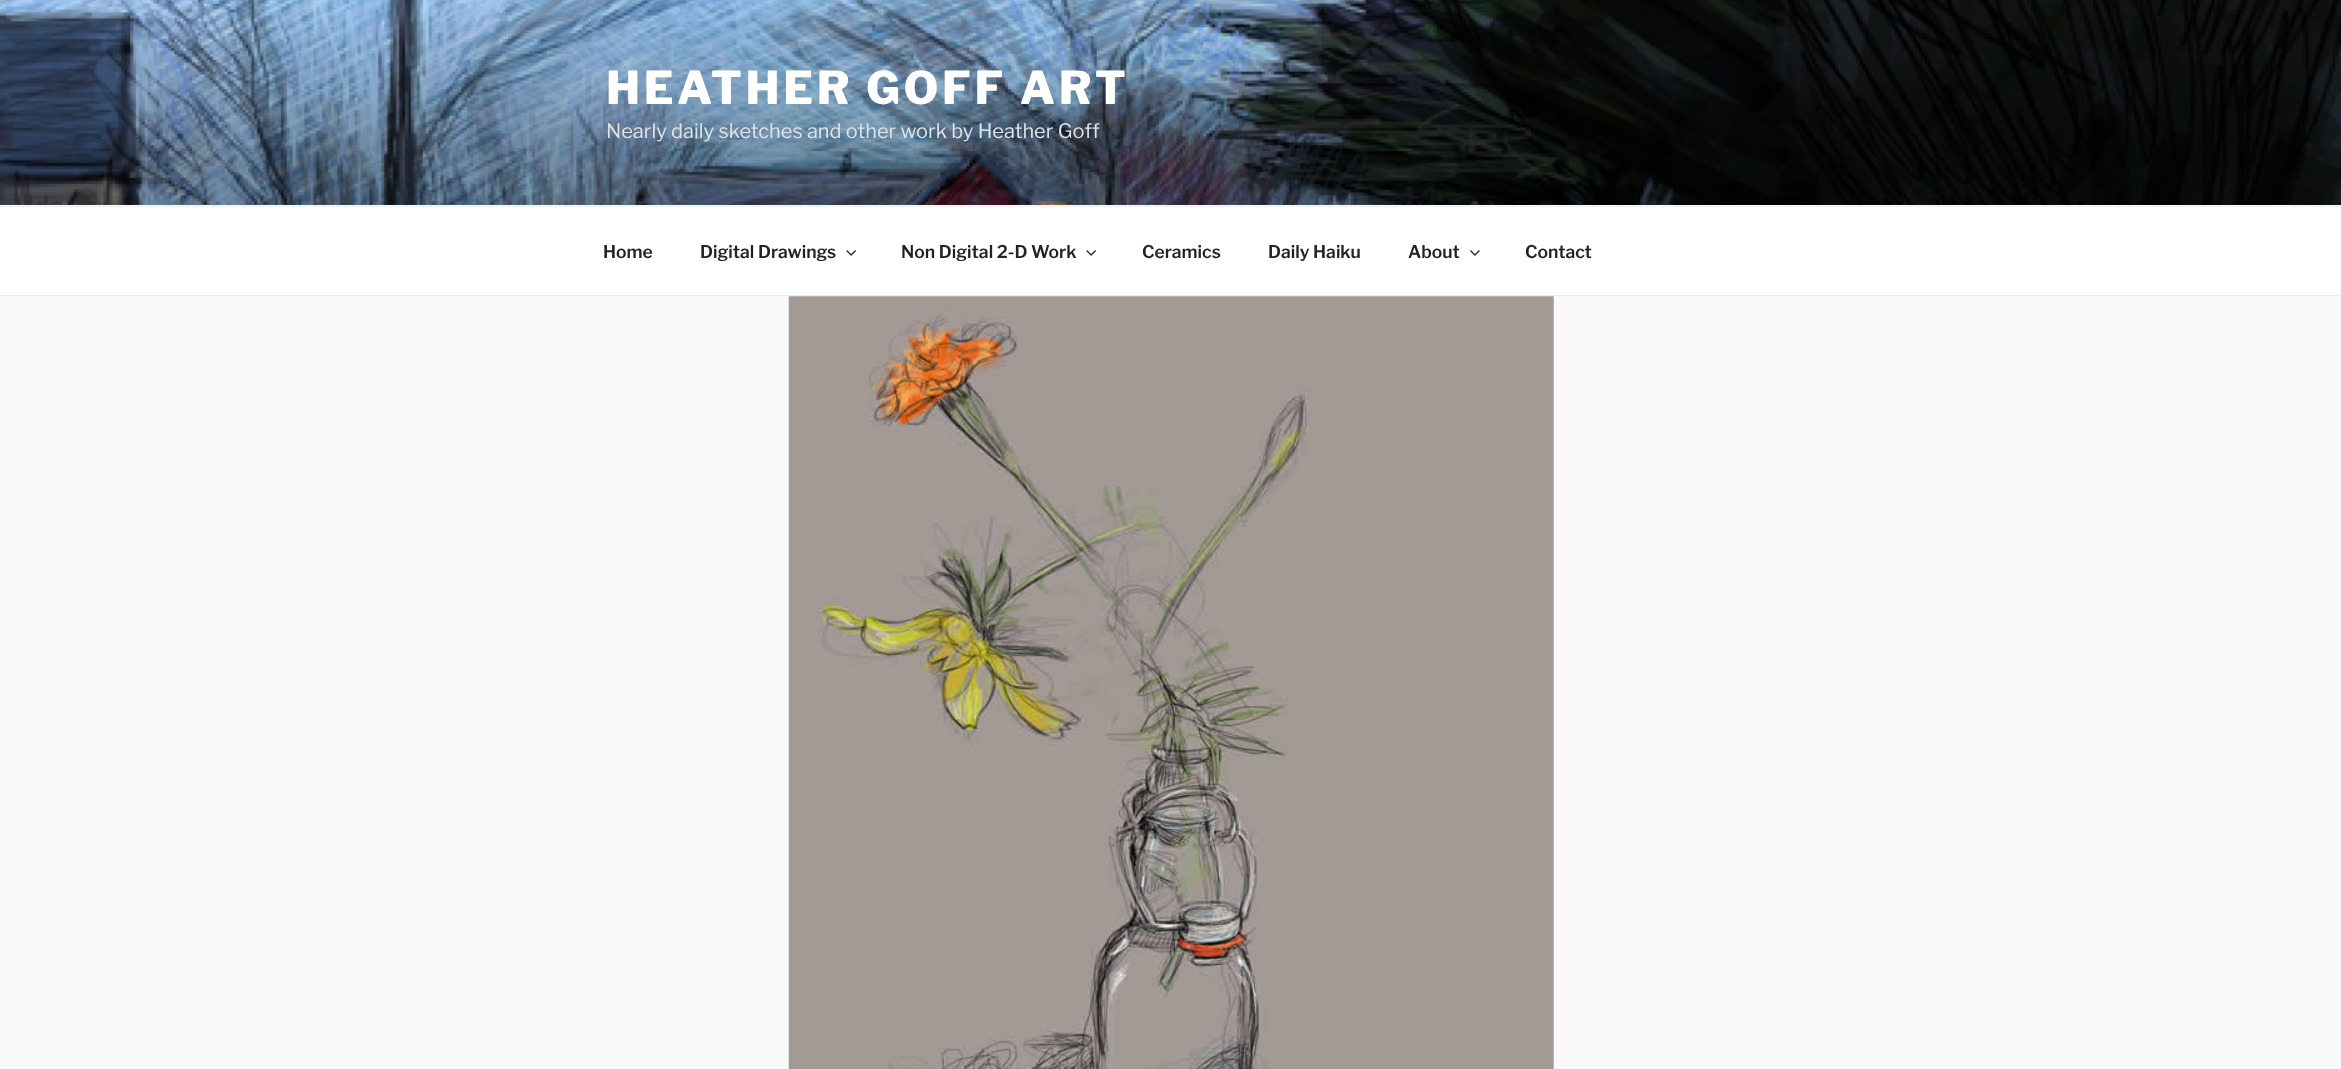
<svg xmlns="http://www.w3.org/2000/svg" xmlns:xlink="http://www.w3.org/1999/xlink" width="2341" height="1069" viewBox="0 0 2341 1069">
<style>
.cls-1{font:800 45px Libre Franklin;letter-spacing:3.6px;fill:#ffffff}
.cls-2{font:20px Libre Franklin;fill:#dee3e8}
.cls-3{font:600 17.5px Libre Franklin;fill:#222222}
</style>
<rect width="100%" height="100%" fill="#fafafa"/>
<image xlink:href="image0.png" x="0" y="0" width="2341" height="205"/>
<rect fill="#ffffff" x="0" y="207" width="2341" height="88"/>
<rect fill="#eeeeee" x="0" y="206" width="2341" height="1"/>
<rect fill="#eeeeee" x="0" y="295" width="2341" height="1"/>
<image xlink:href="image1.png" x="846" y="250" width="10" height="6"/>
<image xlink:href="image1.png" x="1086" y="250" width="10" height="6"/>
<image xlink:href="image2.png" x="1470" y="250" width="10" height="6"/>
<image xlink:href="image3.png" x="788" y="296" width="766" height="773"/>
<text class="cls-1" x="606" y="104">HEATHER GOFF ART</text>
<text class="cls-2" x="606" y="138">Nearly daily sketches and other work by Heather Goff</text>
<text class="cls-3" x="603" y="258">Home</text>
<text class="cls-3" x="700" y="258">Digital Drawings</text>
<text class="cls-3" x="901" y="258">Non Digital 2-D Work</text>
<text class="cls-3" x="1142" y="258">Ceramics</text>
<text class="cls-3" x="1268" y="258">Daily Haiku</text>
<text class="cls-3" x="1408" y="258">About</text>
<text class="cls-3" x="1525" y="258">Contact</text>
</svg>
